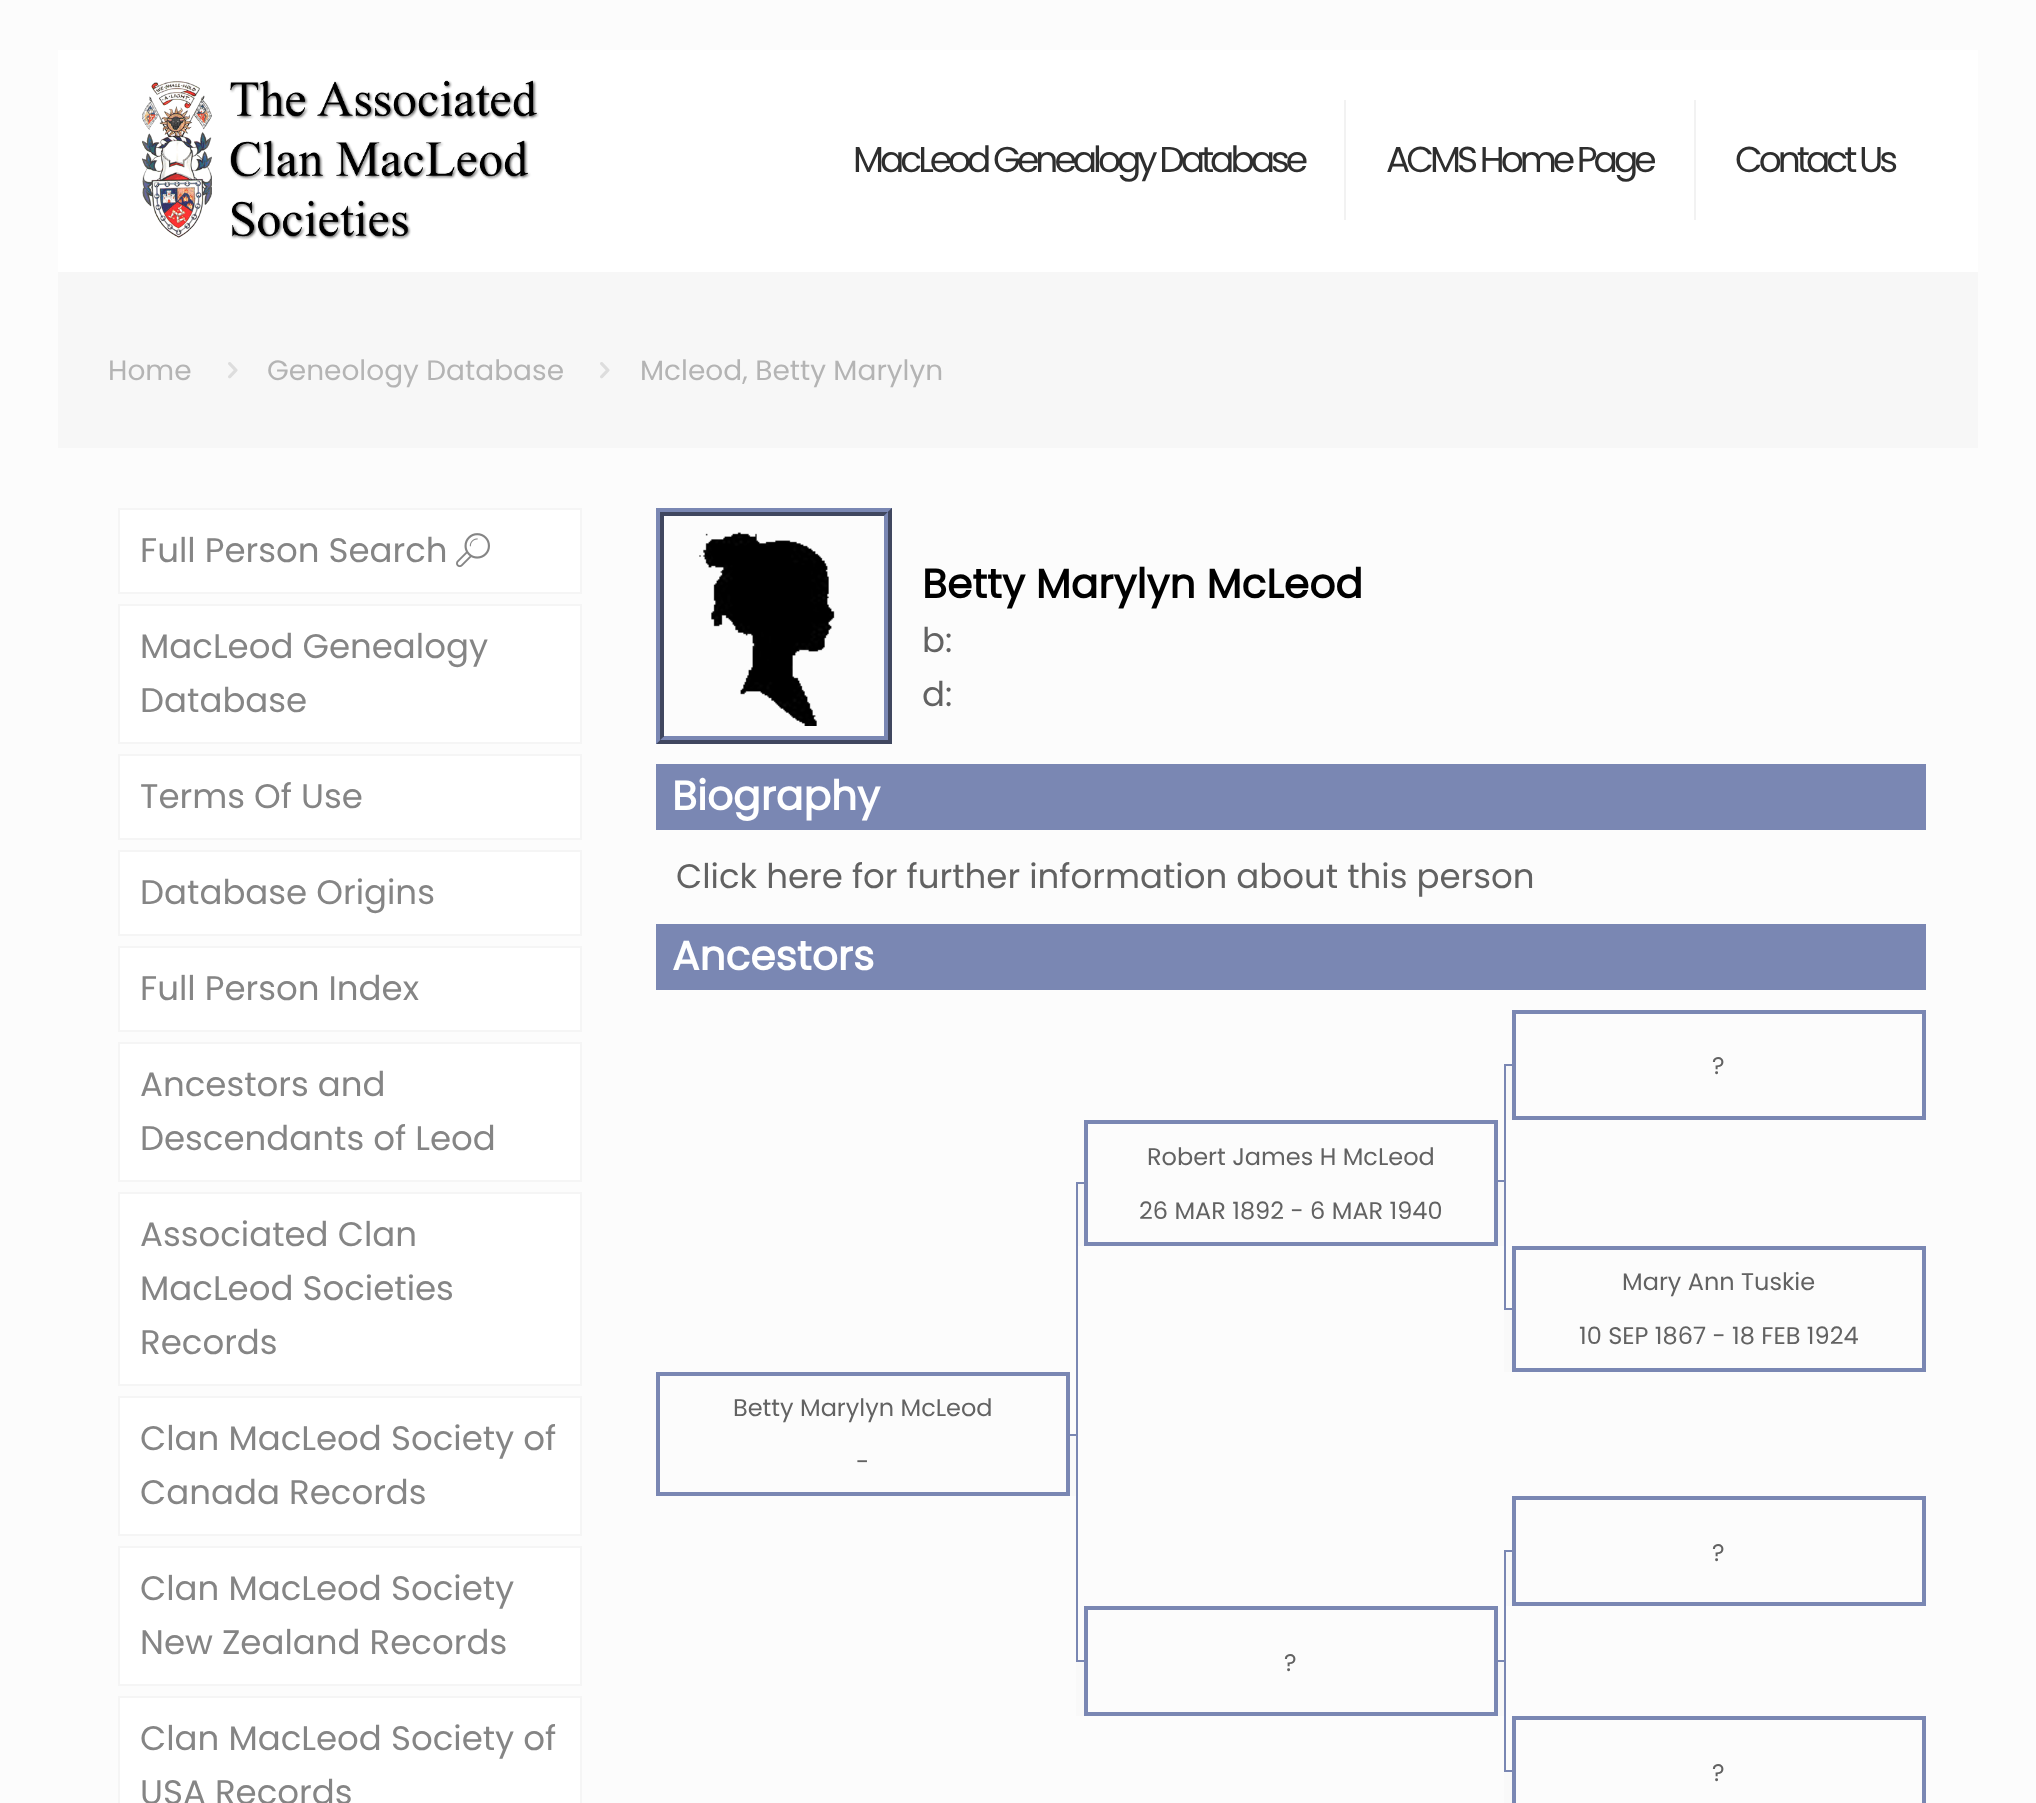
<svg xmlns="http://www.w3.org/2000/svg" xmlns:xlink="http://www.w3.org/1999/xlink" width="2036" height="1803" viewBox="0 0 2036 1803">
<style>
.cls-1{font:36px Poppins;letter-spacing:-4px;fill:#2e2e2e}
.cls-2{font:28px Poppins;fill:#b4b4b4}
.cls-3{font:34px Poppins;fill:#858585}
.cls-4{font:bold 40.75px Poppins;fill:#000000}
.cls-5{font:34px Poppins;fill:#626262}
.cls-6{font:bold 40.75px Poppins;fill:#ffffff}
.cls-7{font:24px Poppins;fill:#626262}
</style>
<rect width="100%" height="100%" fill="#fcfcfc"/>
<rect fill="#ffffff" x="58" y="50" width="1920" height="222"/>
<image xlink:href="image0.png" x="142" y="80" width="397" height="160"/>
<rect fill="#f2f2f2" x="1344" y="100" width="2" height="120"/>
<rect fill="#f2f2f2" x="1694" y="100" width="2" height="120"/>
<rect fill="#f7f7f7" x="58" y="272" width="1920" height="176"/>
<image xlink:href="image1.png" x="228" y="362" width="10" height="17"/>
<image xlink:href="image1.png" x="600" y="362" width="10" height="17"/>
<rect fill="#ffffff" stroke="#f5f5f5" stroke-width="2" x="119" y="509" width="462" height="84"/>
<image xlink:href="image2.png" x="456" y="533" width="34" height="35"/>
<rect fill="#ffffff" stroke="#f5f5f5" stroke-width="2" x="119" y="605" width="462" height="138"/>
<rect fill="#ffffff" stroke="#f5f5f5" stroke-width="2" x="119" y="755" width="462" height="84"/>
<rect fill="#ffffff" stroke="#f5f5f5" stroke-width="2" x="119" y="851" width="462" height="84"/>
<rect fill="#ffffff" stroke="#f5f5f5" stroke-width="2" x="119" y="947" width="462" height="84"/>
<rect fill="#ffffff" stroke="#f5f5f5" stroke-width="2" x="119" y="1043" width="462" height="138"/>
<rect fill="#ffffff" stroke="#f5f5f5" stroke-width="2" x="119" y="1193" width="462" height="192"/>
<rect fill="#ffffff" stroke="#f5f5f5" stroke-width="2" x="119" y="1397" width="462" height="138"/>
<rect fill="#ffffff" stroke="#f5f5f5" stroke-width="2" x="119" y="1547" width="462" height="138"/>
<rect fill="#ffffff" stroke="#f5f5f5" stroke-width="2" x="119" y="1697" width="462" height="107"/>
<image xlink:href="image3.png" x="656" y="508" width="236" height="236"/>
<rect fill="#7a87b3" x="656" y="764" width="1270" height="66"/>
<rect fill="#7a87b3" x="656" y="924" width="1270" height="66"/>
<rect fill="none" stroke="#7a87b3" stroke-width="4" x="1086" y="1122" width="410" height="122"/>
<rect fill="#7a87b3" x="1498" y="1180" width="6" height="2"/>
<rect fill="#f9f9f9" x="1506" y="1064" width="6" height="56"/>
<rect fill="#7a87b3" x="1504" y="1064" width="8" height="2"/>
<rect fill="#7a87b3" x="1504" y="1064" width="2" height="182"/>
<rect fill="none" stroke="#7a87b3" stroke-width="4" x="1514" y="1012" width="410" height="106"/>
<rect fill="#f9f9f9" x="1078" y="1182" width="6" height="64"/>
<rect fill="#7a87b3" x="1076" y="1182" width="8" height="2"/>
<rect fill="#7a87b3" x="1076" y="1182" width="2" height="424"/>
<rect fill="#f9f9f9" x="1498" y="1182" width="6" height="64"/>
<rect fill="#f9f9f9" x="1504" y="1310" width="8" height="62"/>
<rect fill="#7a87b3" x="1504" y="1308" width="8" height="2"/>
<rect fill="#7a87b3" x="1504" y="1246" width="2" height="64"/>
<rect fill="none" stroke="#7a87b3" stroke-width="4" x="1514" y="1248" width="410" height="122"/>
<rect fill="none" stroke="#7a87b3" stroke-width="4" x="658" y="1374" width="410" height="120"/>
<rect fill="#7a87b3" x="1070" y="1434" width="6" height="2"/>
<rect fill="#f9f9f9" x="1070" y="1436" width="6" height="60"/>
<rect fill="#7a87b3" x="1076" y="1660" width="8" height="2"/>
<rect fill="#7a87b3" x="1076" y="1606" width="2" height="56"/>
<rect fill="none" stroke="#7a87b3" stroke-width="4" x="1086" y="1608" width="410" height="106"/>
<rect fill="#7a87b3" x="1498" y="1660" width="6" height="2"/>
<rect fill="#f9f9f9" x="1506" y="1550" width="6" height="56"/>
<rect fill="#7a87b3" x="1504" y="1550" width="8" height="2"/>
<rect fill="#7a87b3" x="1504" y="1550" width="2" height="166"/>
<rect fill="none" stroke="#7a87b3" stroke-width="4" x="1514" y="1498" width="410" height="106"/>
<rect fill="#f9f9f9" x="1076" y="1662" width="8" height="54"/>
<rect fill="#f9f9f9" x="1498" y="1662" width="6" height="54"/>
<rect fill="#f9f9f9" x="1504" y="1772" width="8" height="31"/>
<rect fill="#7a87b3" x="1504" y="1770" width="8" height="2"/>
<rect fill="#7a87b3" x="1504" y="1716" width="2" height="56"/>
<rect fill="none" stroke="#7a87b3" stroke-width="4" x="1514" y="1718" width="410" height="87"/>
<text class="cls-1" x="853" y="172">MacLeod Genealogy Database</text>
<text class="cls-1" x="1386" y="172">ACMS Home Page</text>
<text class="cls-1" x="1735" y="172">Contact Us</text>
<text class="cls-2" x="108" y="380">Home</text>
<text class="cls-2" x="267" y="380">Geneology Database</text>
<text class="cls-2" x="640" y="380">Mcleod, Betty Marylyn</text>
<text class="cls-3" x="140" y="562">Full Person Search</text>
<text class="cls-3"><tspan x="140" y="658">MacLeod Genealogy</tspan><tspan x="140" y="712">Database</tspan></text>
<text class="cls-3" x="140" y="808">Terms Of Use</text>
<text class="cls-3" x="140" y="904">Database Origins</text>
<text class="cls-3" x="140" y="1000">Full Person Index</text>
<text class="cls-3"><tspan x="140" y="1096">Ancestors and</tspan><tspan x="140" y="1150">Descendants of Leod</tspan></text>
<text class="cls-3"><tspan x="140" y="1246">Associated Clan</tspan><tspan x="140" y="1300">MacLeod Societies</tspan><tspan x="140" y="1354">Records</tspan></text>
<text class="cls-3"><tspan x="140" y="1450">Clan MacLeod Society of</tspan><tspan x="140" y="1504">Canada Records</tspan></text>
<text class="cls-3"><tspan x="140" y="1600">Clan MacLeod Society</tspan><tspan x="140" y="1654">New Zealand Records</tspan></text>
<text class="cls-3"><tspan x="140" y="1750">Clan MacLeod Society of</tspan><tspan x="140" y="1804">USA Records</tspan></text>
<text class="cls-4" x="922" y="598">Betty Marylyn McLeod</text>
<text class="cls-5"><tspan x="922" y="652">b:</tspan><tspan x="922" y="706">d:</tspan></text>
<text class="cls-6" x="672" y="810">Biography</text>
<text class="cls-5" x="676" y="888">Click here for further information about this person</text>
<text class="cls-6" x="672" y="970">Ancestors</text>
<text class="cls-7" x="1147" y="1165">Robert James H McLeod</text>
<text class="cls-7" x="1139" y="1219">26 MAR 1892 - 6 MAR 1940</text>
<text class="cls-7" x="1712" y="1074">?</text>
<text class="cls-7" x="1622" y="1290">Mary Ann Tuskie</text>
<text class="cls-7" x="1579" y="1344">10 SEP 1867 - 18 FEB 1924</text>
<text class="cls-7" x="733" y="1416">Betty Marylyn McLeod</text>
<text class="cls-7" x="856" y="1470">-</text>
<text class="cls-7" x="1284" y="1671">?</text>
<text class="cls-7" x="1712" y="1561">?</text>
<text class="cls-7" x="1712" y="1781">?</text>
</svg>
